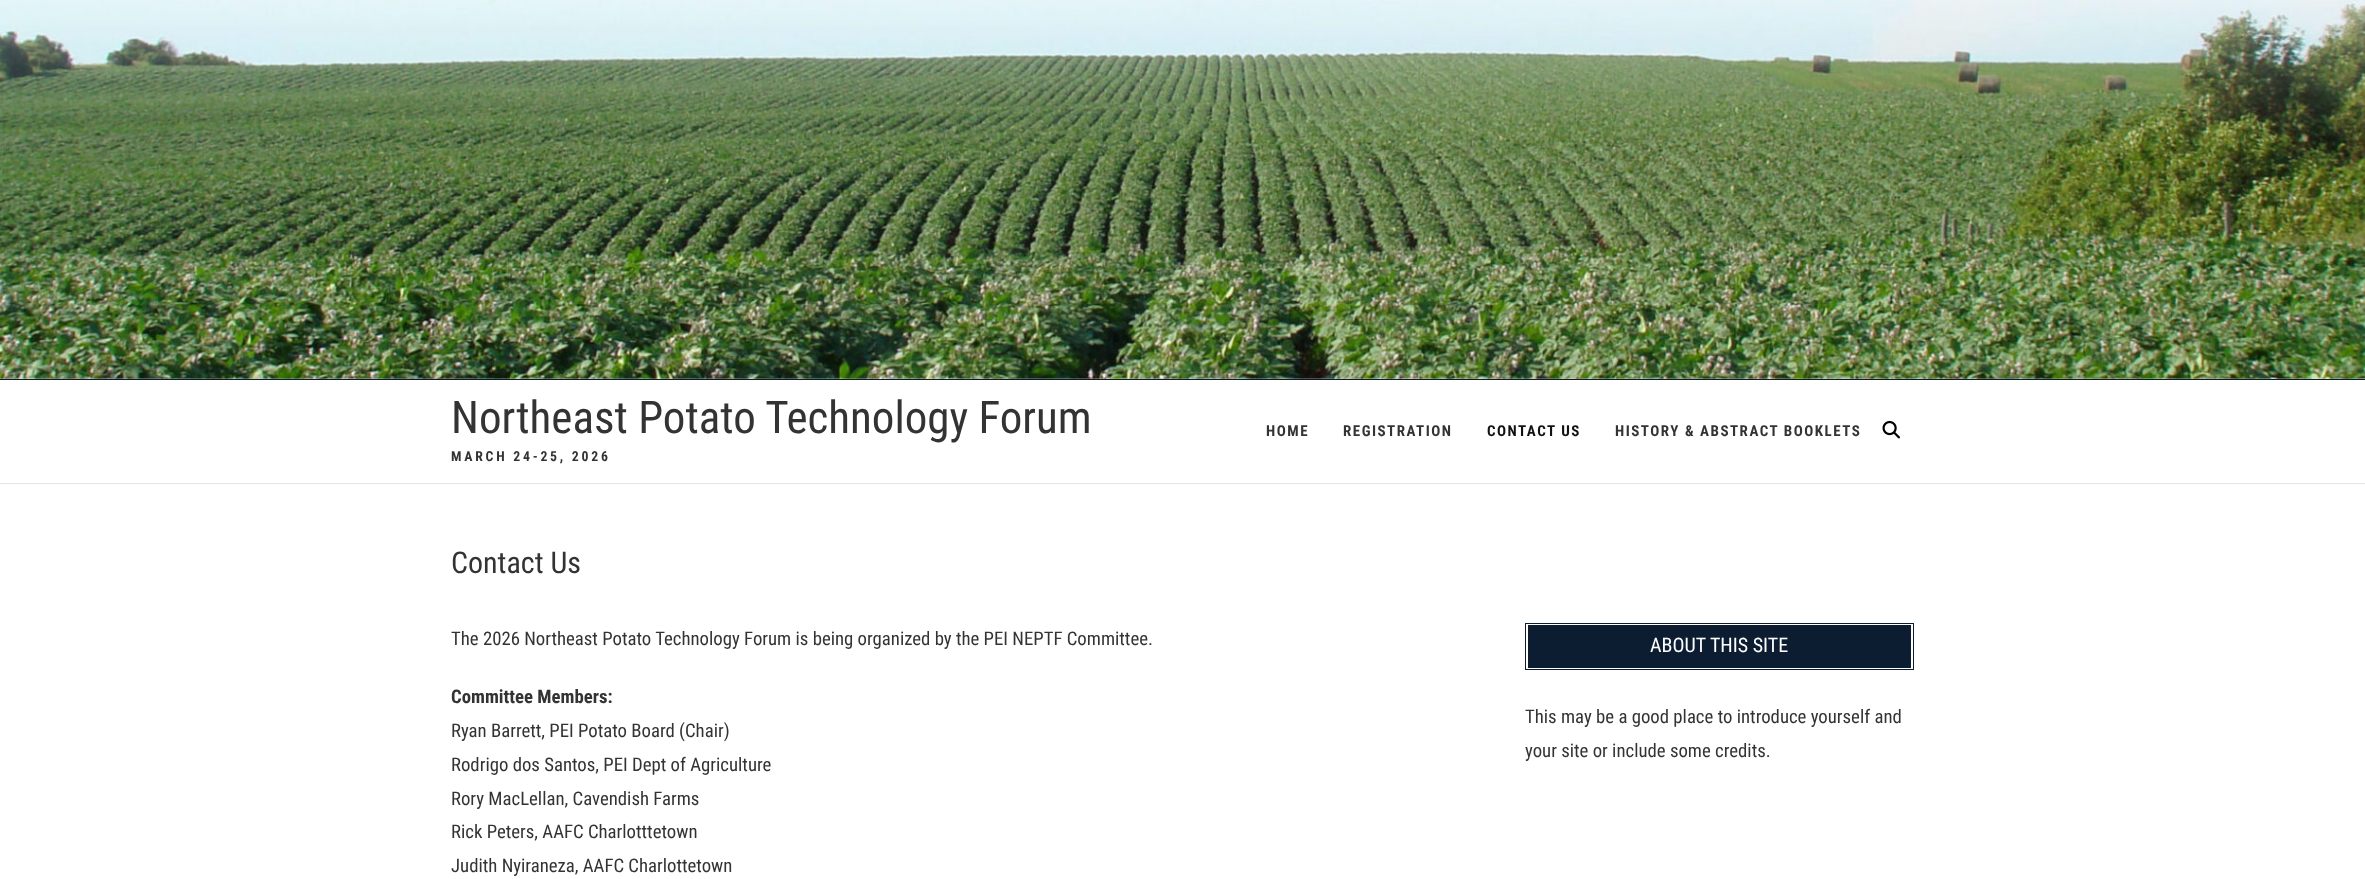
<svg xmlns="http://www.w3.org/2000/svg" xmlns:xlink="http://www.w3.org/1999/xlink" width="2365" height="879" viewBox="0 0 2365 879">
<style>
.cls-1{font:45px Roboto Condensed;fill:#333333}
.cls-2{font:bold 13.75px Roboto Condensed;letter-spacing:2.75px;fill:#333333}
.cls-3{font:bold 15px Roboto Condensed;letter-spacing:1.5px;fill:#333333}
.cls-4{font:bold 15px Roboto Condensed;letter-spacing:1.5px;fill:#111111}
.cls-5{font:30px Roboto Condensed;fill:#333333}
.cls-6{font:18.75px Roboto Condensed;fill:#333333}
.cls-7{font:bold 18.75px Roboto Condensed;fill:#333333}
.cls-8{font:20px Roboto Condensed;fill:#ffffff}
</style>
<rect width="100%" height="100%" fill="#ffffff"/>
<image xlink:href="image0.png" x="0" y="0" width="2365" height="379"/>
<rect fill="#0c1a2c" x="0" y="379" width="2365" height="1"/>
<rect fill="#e6e6e6" x="0" y="483" width="2365" height="1"/>
<image xlink:href="image1.png" x="1882" y="420" width="18" height="19"/>
<rect fill="#0d1d31" x="1528" y="625" width="383" height="43"/>
<rect fill="none" stroke="#0d1d31" x="1525.5" y="623.5" width="388" height="46"/>
<text class="cls-1" x="451" y="433">Northeast Potato Technology Forum</text>
<text class="cls-2" x="451" y="461">MARCH 24-25, 2026</text>
<text class="cls-3" x="1266" y="436">HOME</text>
<text class="cls-3" x="1343" y="436">REGISTRATION</text>
<text class="cls-4" x="1487" y="436">CONTACT US</text>
<text class="cls-3" x="1615" y="436">HISTORY &amp; ABSTRACT BOOKLETS</text>
<text class="cls-5" x="451" y="573">Contact Us</text>
<text class="cls-6" x="451" y="645">The 2026 Northeast Potato Technology Forum is being organized by the PEI NEPTF Committee.</text>
<text class="cls-7" x="451" y="703">Committee Members:</text>
<text class="cls-6"><tspan x="451" y="737">Ryan Barrett, PEI Potato Board (Chair)</tspan><tspan x="451" y="771">Rodrigo dos Santos, PEI Dept of Agriculture</tspan><tspan x="451" y="805">Rory MacLellan, Cavendish Farms</tspan><tspan x="451" y="838">Rick Peters, AAFC Charlotttetown</tspan><tspan x="451" y="872">Judith Nyiraneza, AAFC Charlottetown</tspan></text>
<text class="cls-8" x="1650" y="652">ABOUT THIS SITE</text>
<text class="cls-6"><tspan x="1525" y="723">This may be a good place to introduce yourself and</tspan><tspan x="1525" y="757">your site or include some credits.</tspan></text>
</svg>
